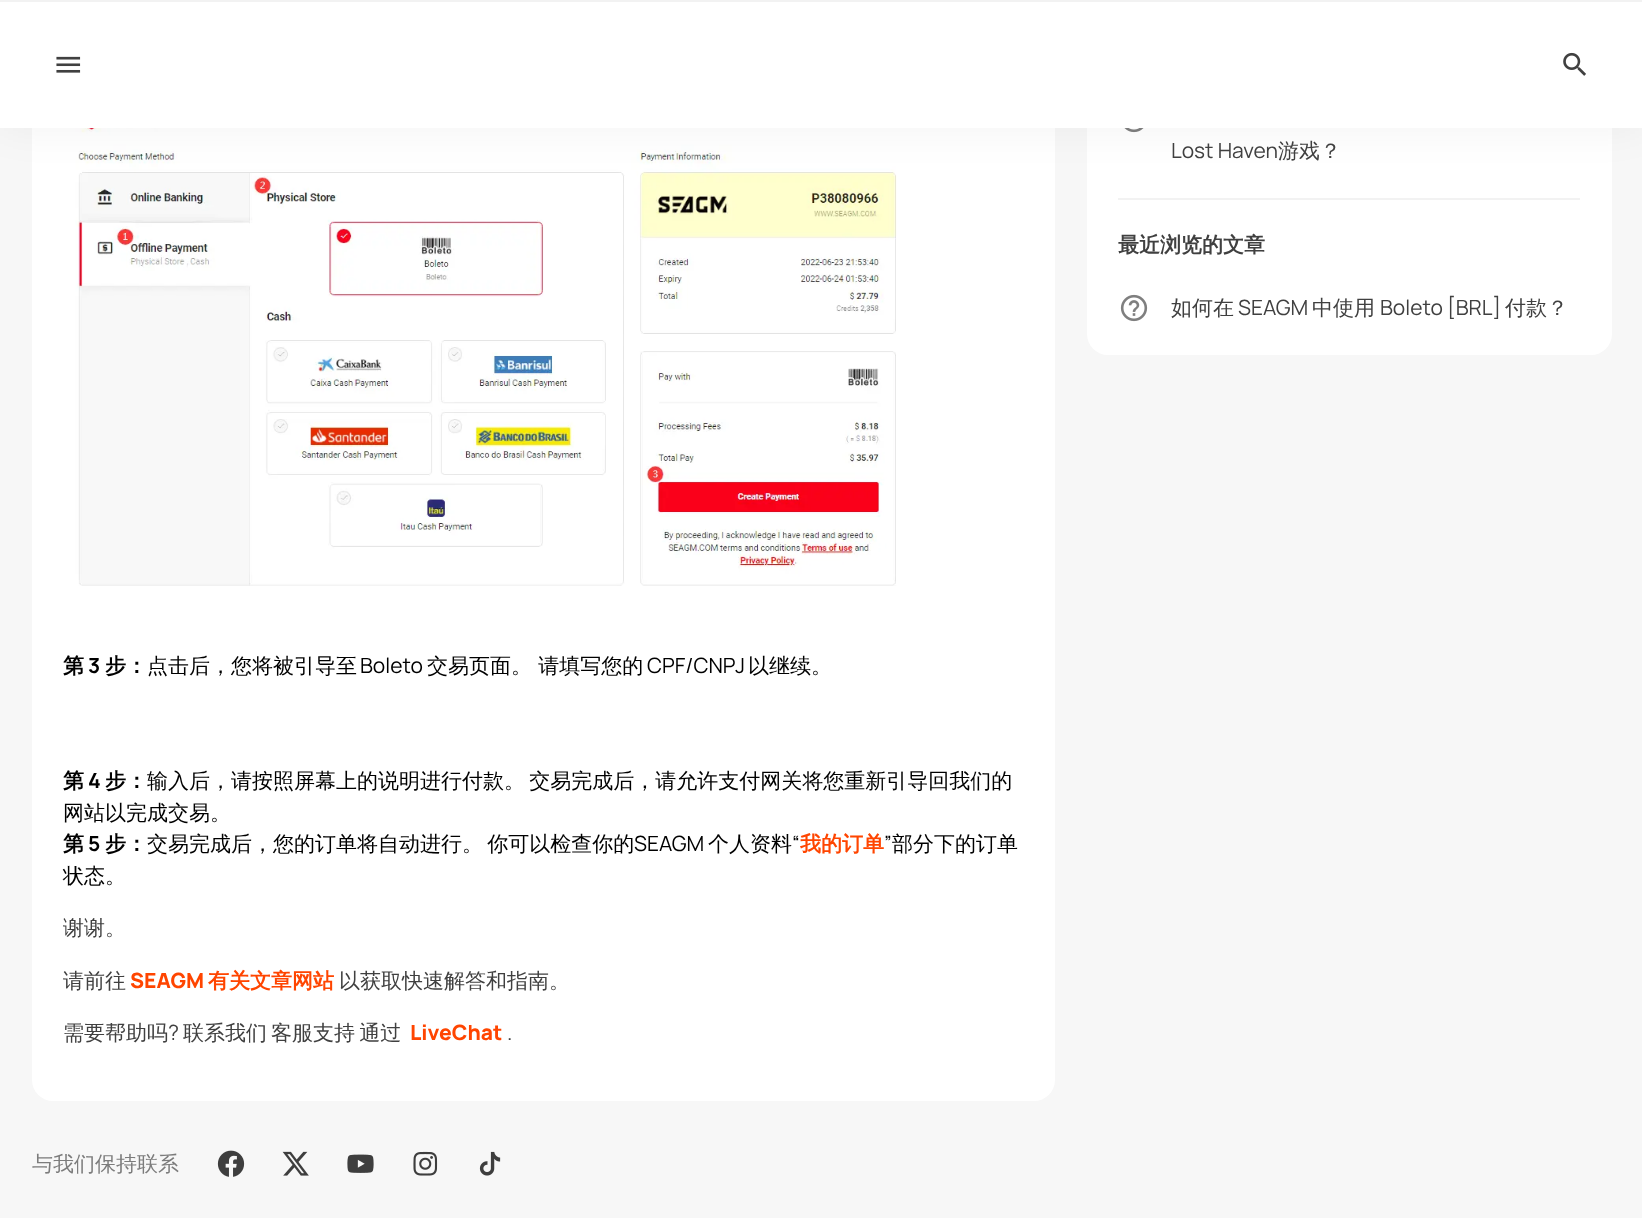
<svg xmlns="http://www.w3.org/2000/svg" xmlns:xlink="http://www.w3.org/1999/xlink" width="1642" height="1218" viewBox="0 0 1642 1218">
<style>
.cls-1{font:21px Manrope;fill:#404040}
.cls-2{font:500 21px WenQuanYi Zen Hei;fill:#404040}
.cls-3{font:bold 21px WenQuanYi Zen Hei;fill:#404040}
.cls-4{font:bold 21px WenQuanYi Zen Hei;fill:#000000}
.cls-5{font:bold 21px Manrope;fill:#000000}
.cls-6{font:500 21px WenQuanYi Zen Hei;fill:#000000}
.cls-7{font:21px Manrope;fill:#000000}
.cls-8{font:bold 21px WenQuanYi Zen Hei;fill:#ff4500}
.cls-9{font:800 21px Manrope;fill:#ff4500}
.cls-10{font:500 21px WenQuanYi Zen Hei;fill:#7c7c7c}
</style>
<rect width="100%" height="100%" fill="#f7f7f7"/>
<rect fill="#ffffff" x="1087" y="-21" width="525" height="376" rx="21"/>
<image xlink:href="image2.png" x="1124" y="128" width="20" height="5"/>
<rect fill="#ffffff" x="32" y="-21" width="1023" height="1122" rx="21"/>
<image xlink:href="image4.png" x="75" y="128" width="822" height="458"/>
<rect fill="#000000" fill-opacity="0.05" filter="blur(21px)" x="0" y="-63" width="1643" height="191"/>
<rect fill="#ffffff" x="0" y="2" width="1642" height="126"/>
<rect fill="#f2f2f2" x="0" y="0" width="1642" height="2"/>
<image xlink:href="image0.png" x="56" y="56" width="25" height="17"/>
<image xlink:href="image1.png" x="1563" y="52" width="23" height="24"/>
<path fill="#f2f2f2" d="M1118-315V200H1580V198H1118Z"/>
<image xlink:href="image3.png" x="1120" y="294" width="28" height="28"/>
<image xlink:href="image5.png" x="217" y="1150" width="28" height="27"/>
<image xlink:href="image6.png" x="282" y="1151" width="27" height="25"/>
<image xlink:href="image7.png" x="347" y="1154" width="27" height="19"/>
<image xlink:href="image8.png" x="413" y="1151" width="25" height="25"/>
<image xlink:href="image9.png" x="479" y="1151" width="22" height="25"/>
<text class="cls-1" x="1171" y="158">Lost Haven</text>
<text class="cls-2" x="1278" y="158">游戏？</text>
<text class="cls-3" x="1118" y="252">最近浏览的文章</text>
<text class="cls-2" x="1171" y="315">如何在</text>
<text class="cls-1" x="1238" y="315">SEAGM</text>
<text class="cls-2" x="1312" y="315">中使用</text>
<text class="cls-1" x="1380" y="315">Boleto [BRL]</text>
<text class="cls-2" x="1505" y="315">付款？</text>
<text class="cls-4" x="63" y="673">第</text>
<text class="cls-5" x="88" y="673">3</text>
<text class="cls-4" x="105" y="673">步：</text>
<text class="cls-6" x="147" y="673">点击后，您将被引导至</text>
<text class="cls-7" x="360" y="673">Boleto</text>
<text class="cls-6" x="427" y="673">交易页面。 请填写您的</text>
<text class="cls-7" x="647" y="673">CPF/CNPJ</text>
<text class="cls-6" x="748" y="673">以继续。</text>
<text class="cls-4" x="63" y="788">第</text>
<text class="cls-5" x="88" y="788">4</text>
<text class="cls-4" x="105" y="788">步：</text>
<text class="cls-6" x="147" y="788" word-spacing="-2">输入后，请按照屏幕上的说明进行付款。 交易完成后，请允许支付网关将您重新引导回我们的</text>
<text class="cls-6" x="63" y="820">网站以完成交易。</text>
<text class="cls-4" x="63" y="851">第</text>
<text class="cls-5" x="88" y="851">5</text>
<text class="cls-4" x="105" y="851">步：</text>
<text class="cls-6" x="147" y="851" word-spacing="-2">交易完成后，您的订单将自动进行。 你可以检查你的</text>
<text class="cls-7" x="634" y="851">SEAGM</text>
<text class="cls-6" x="708" y="851">个人资料</text>
<text class="cls-7" x="792" y="851">“</text>
<text class="cls-8" x="800" y="851">我的订单</text>
<text class="cls-7" x="884" y="851">”</text>
<text class="cls-6" x="892" y="851">部分下的订单</text>
<text class="cls-6" x="63" y="883">状态。</text>
<text class="cls-2" x="63" y="935">谢谢。</text>
<text class="cls-2" x="63" y="988">请前往</text>
<text class="cls-9" x="130" y="988">SEAGM</text>
<text class="cls-8" x="208" y="988">有关文章网站</text>
<text class="cls-2" x="339" y="988">以获取快速解答和指南。</text>
<text class="cls-2" x="63" y="1040">需要帮助吗</text>
<text class="cls-1" x="168" y="1040">?</text>
<text class="cls-2" x="183" y="1040">联系我们</text>
<text class="cls-2" x="271" y="1040" word-spacing="-2">客服支持 通过</text>
<text class="cls-9" x="410" y="1040">LiveChat</text>
<text class="cls-1" x="507" y="1040">.</text>
<text class="cls-10" x="32" y="1171">与我们保持联系</text>
</svg>
